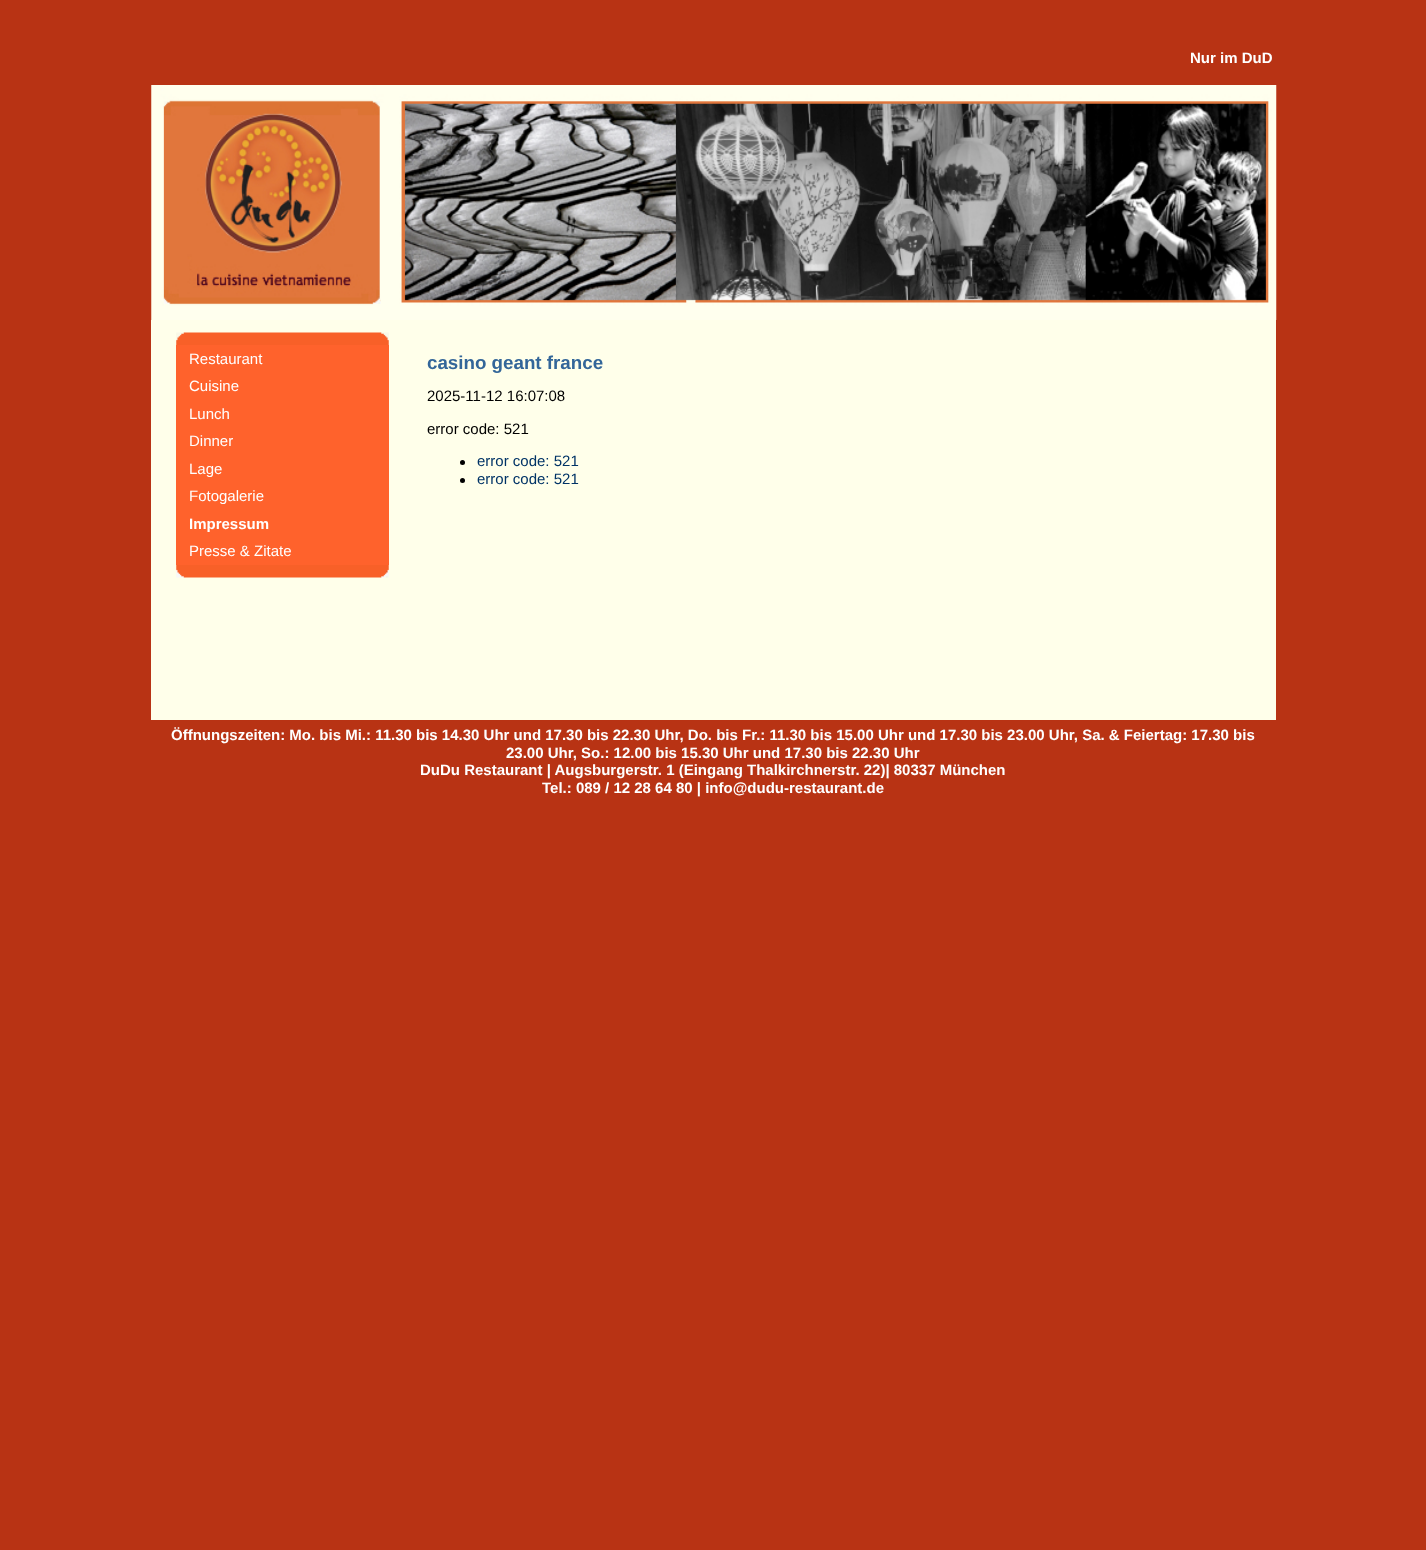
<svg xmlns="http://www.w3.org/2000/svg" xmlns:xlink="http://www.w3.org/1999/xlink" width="1426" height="1550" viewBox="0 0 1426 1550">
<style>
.cls-1{font:bold 15px Liberation Sans;fill:#ffffff}
.cls-2{font:15px Liberation Sans;fill:#ffffff}
.cls-3{font:bold 18.75px Liberation Sans;fill:#336699}
.cls-4{font:15px Liberation Sans;fill:#000000}
.cls-5{font:15px Liberation Sans;fill:#003366}
</style>
<rect width="100%" height="100%" fill="#b83314"/>
<image xlink:href="image0.png" x="151" y="85" width="1126" height="235"/>
<rect fill="#ffffea" x="151" y="320" width="264" height="400"/>
<image xlink:href="image1.png" x="176" y="332" width="213" height="13"/>
<rect fill="#ff622c" x="176" y="345" width="213" height="220"/>
<image xlink:href="image2.png" x="176" y="565" width="213" height="13"/>
<rect fill="#ffffea" x="415" y="320" width="861" height="400"/>
<circle fill="#000000" cx="462.5" cy="462.5" r="2.5"/>
<circle fill="#000000" cx="462.5" cy="480.5" r="2.5"/>
<text class="cls-1" x="1190" y="63">Nur im DuD</text>
<text class="cls-2"><tspan x="189" y="364">Restaurant</tspan><tspan x="189" y="391">Cuisine</tspan><tspan x="189" y="419">Lunch</tspan><tspan x="189" y="446">Dinner</tspan><tspan x="189" y="474">Lage</tspan><tspan x="189" y="501">Fotogalerie</tspan></text>
<text class="cls-1" x="189" y="529">Impressum</text>
<text class="cls-2" x="189" y="556">Presse &amp; Zitate</text>
<text class="cls-3" x="427" y="369">casino geant france</text>
<text class="cls-4" x="427" y="401">2025-11-12 16:07:08</text>
<text class="cls-4" x="427" y="434">error code: 521</text>
<text class="cls-5"><tspan x="477" y="466">error code: 521</tspan><tspan x="477" y="484">error code: 521</tspan></text>
<text class="cls-1" x="171" y="740">Öffnungszeiten: Mo. bis Mi.: 11.30 bis 14.30 Uhr und 17.30 bis 22.30 Uhr, Do. bis Fr.: 11.30 bis 15.00 Uhr und 17.30 bis 23.00 Uhr, Sa. &amp; Feiertag: 17.30 bis</text>
<text class="cls-1" x="506" y="758">23.00 Uhr, So.: 12.00 bis 15.30 Uhr und 17.30 bis 22.30 Uhr</text>
<text class="cls-1" x="420" y="775">DuDu Restaurant | Augsburgerstr. 1 (Eingang Thalkirchnerstr. 22)| 80337 München</text>
<text class="cls-1" x="542" y="793">Tel.: 089 / 12 28 64 80 | info@dudu-restaurant.de</text>
</svg>
